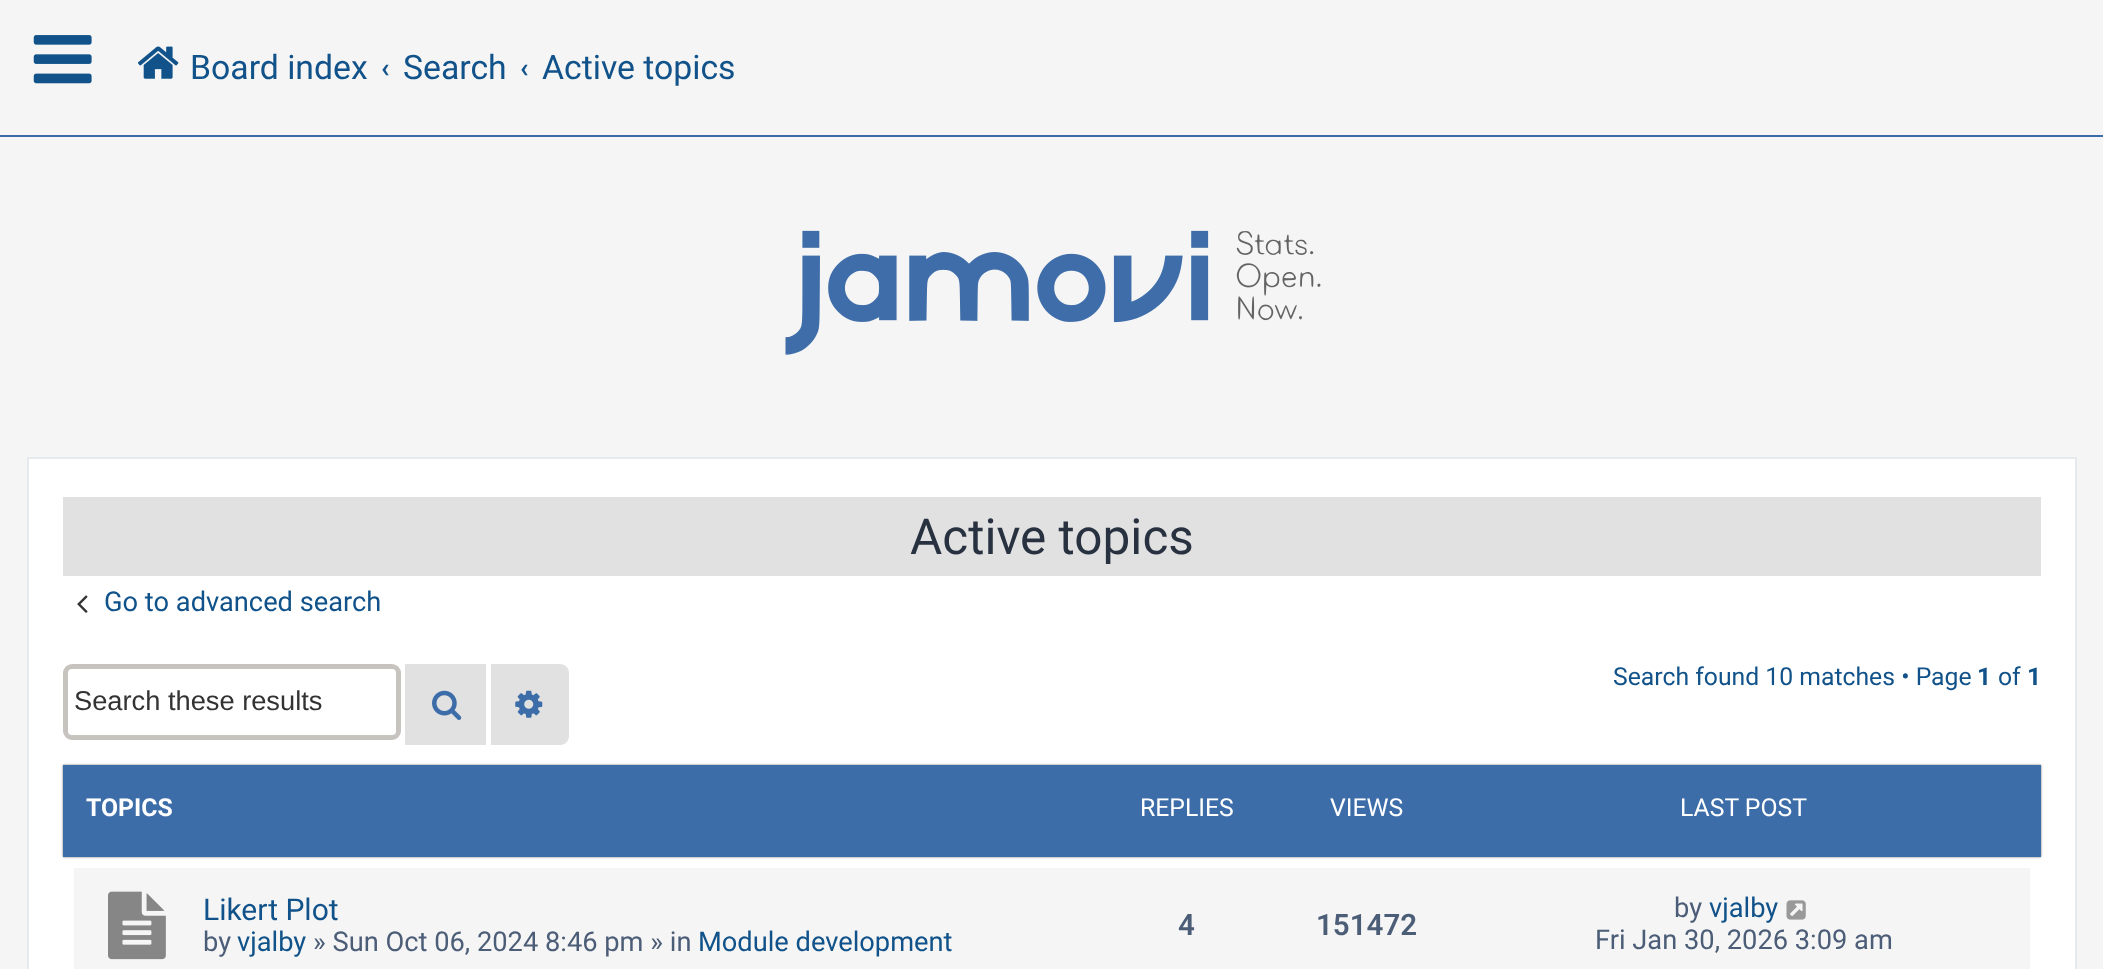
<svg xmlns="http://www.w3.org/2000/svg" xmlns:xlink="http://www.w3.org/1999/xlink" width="2103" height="969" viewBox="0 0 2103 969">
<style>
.cls-1{font:33.75px Roboto;fill:#105289}
.cls-2{font:bold 27.25px Roboto;fill:#105289}
.cls-3{font:49.5px Roboto;fill:#28313f}
.cls-4{font:27.25px Roboto;fill:#105289}
.cls-5{font:24.75px Roboto;fill:#105289}
.cls-6{font:bold 24.75px Roboto;fill:#105289}
.cls-7{font:27.25px Liberation Sans;fill:#333333}
.cls-8{font:bold 24.75px Roboto;fill:#ffffff}
.cls-9{font:24.75px Roboto;fill:#ffffff}
.cls-10{font:30px Roboto;fill:#105289}
.cls-11{font:27.25px Roboto;fill:#4c5d77}
.cls-12{font:600 29.5px Roboto;fill:#4c5d77}
</style>
<rect width="100%" height="100%" fill="#f5f5f5"/>
<rect fill="#3d6da8" x="0" y="135" width="2103" height="2"/>
<image xlink:href="image0.png" x="33" y="35" width="59" height="49"/>
<image xlink:href="image1.png" x="137" y="46" width="42" height="33"/>
<image xlink:href="image2.png" x="785" y="230" width="536" height="125"/>
<rect fill="#ffffff" stroke="#e6e9ed" stroke-width="2" x="28" y="458" width="2048" height="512"/>
<rect fill="#e1e1e1" x="63" y="497" width="1978" height="79"/>
<image xlink:href="image3.png" x="77" y="595" width="11" height="18"/>
<rect fill="none" stroke="#c7c3bf" stroke-width="5" x="65.5" y="666.5" width="333" height="71" rx="6.5"/>
<rect fill="#e1e1e1" x="405" y="664" width="81" height="81"/>
<image xlink:href="image4.png" x="432" y="690" width="30" height="30"/>
<path fill="#e1e1e1" d="M491 664H560C565 664 569 668 569 673V736C569 741 565 745 560 745H491Z"/>
<image xlink:href="image5.png" x="515" y="690" width="28" height="28"/>
<rect fill="#717171" filter="blur(1px)" x="63" y="765" width="1978" height="92"/>
<rect fill="#3d6da8" x="63" y="765" width="1978" height="92"/>
<rect fill="#f5f5f5" x="74" y="868" width="1956" height="101"/>
<image xlink:href="image6.png" x="108" y="891" width="58" height="69"/>
<image xlink:href="image7.png" x="1786" y="900" width="20" height="20"/>
<text class="cls-1" x="190" y="79">Board index</text>
<text class="cls-2" x="381" y="77">‹</text>
<text class="cls-1" x="403" y="79">Search</text>
<text class="cls-2" x="520" y="77">‹</text>
<text class="cls-1" x="542" y="79">Active topics</text>
<text class="cls-3" x="910" y="554">Active topics</text>
<text class="cls-4" x="104" y="611">Go to advanced search</text>
<text class="cls-5" x="1613" y="685">Search found 10 matches • Page</text>
<text class="cls-6" x="1977" y="685">1</text>
<text class="cls-5" x="1998" y="685">of</text>
<text class="cls-6" x="2027" y="685">1</text>
<text class="cls-7" x="74" y="710">Search these results</text>
<text class="cls-8" x="86" y="816">TOPICS</text>
<text class="cls-9" x="1140" y="816">REPLIES</text>
<text class="cls-9" x="1330" y="816">VIEWS</text>
<text class="cls-9" x="1680" y="816">LAST POST</text>
<text class="cls-10" x="203" y="920">Likert Plot</text>
<text class="cls-11" x="203" y="951">by</text>
<text class="cls-4" x="237" y="951">vjalby</text>
<text class="cls-11" x="313" y="951">» Sun Oct 06, 2024 8:46 pm » in</text>
<text class="cls-4" x="698" y="951">Module development</text>
<text class="cls-12" x="1178" y="935">4</text>
<text class="cls-12" x="1316" y="935">151472</text>
<text class="cls-11" x="1674" y="917">by</text>
<text class="cls-4" x="1709" y="917">vjalby</text>
<text class="cls-11" x="1595" y="949">Fri Jan 30, 2026 3:09 am</text>
</svg>
